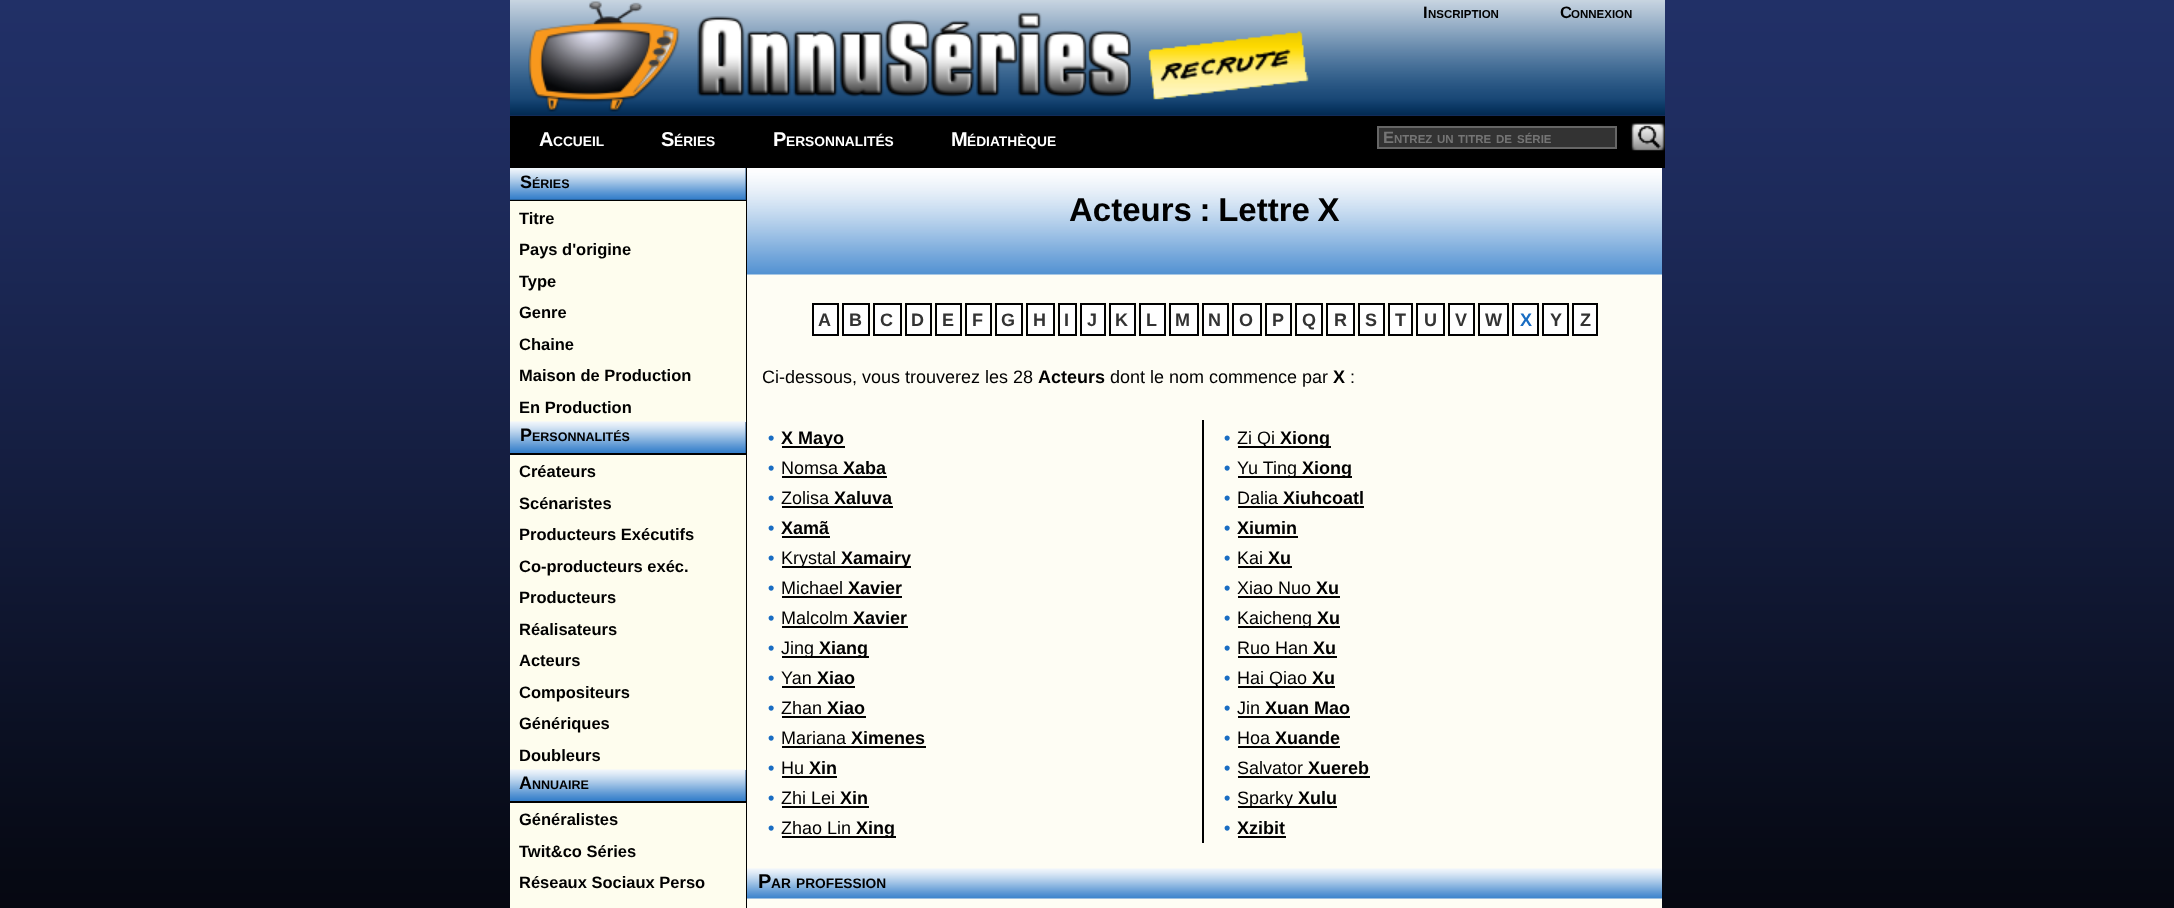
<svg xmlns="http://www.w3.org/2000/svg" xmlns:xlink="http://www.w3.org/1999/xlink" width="2174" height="908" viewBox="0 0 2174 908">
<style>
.cls-1{font:bold 16.5px Liberation Sans;fill:#000000}
.cls-2{font:bold 11.5px Liberation Sans;fill:#000000}
.cls-3{font:bold 20px Liberation Sans;fill:#ffffff}
.cls-4{font:bold 13.75px Liberation Sans;fill:#ffffff}
.cls-5{font:bold 16.5px Liberation Sans;fill:#757575}
.cls-6{font:bold 11.5px Liberation Sans;fill:#757575}
.cls-7{font:bold 18px Liberation Sans;fill:#000000}
.cls-8{font:bold 12.5px Liberation Sans;fill:#000000}
.cls-9{font:bold 33px Liberation Sans;fill:#000000}
.cls-10{font:bold 18px Liberation Sans;fill:#333333}
.cls-11{font:bold 18px Liberation Sans;fill:#196dc3}
.cls-12{font:18px Liberation Sans;fill:#000000}
.cls-13{font:bold 20px Liberation Sans;fill:#000000}
.cls-14{font:bold 13.75px Liberation Sans;fill:#000000}
</style>
<rect width="100%" height="100%" fill="#ffffff"/>
<image xlink:href="image0.png" x="0" y="0" width="2174" height="908"/>
<image xlink:href="image1.png" x="510" y="0" width="1155" height="116"/>
<image xlink:href="image2.png" x="528" y="1" width="603" height="111"/>
<image xlink:href="image3.png" x="1148" y="31" width="161" height="69"/>
<rect fill="#000000" x="510" y="116" width="1155" height="52"/>
<rect fill="#333333" stroke="#666666" stroke-width="2" x="1378" y="127" width="238" height="21"/>
<image xlink:href="image4.png" x="1630" y="123" width="35" height="28"/>
<rect fill="#000000" x="746" y="168" width="1" height="740"/>
<rect fill="#000000" x="510" y="200" width="236" height="1"/>
<rect fill="#1b4876" x="510" y="168" width="236" height="32"/>
<image xlink:href="image5.png" x="510" y="168" width="236" height="32"/>
<rect fill="#fefdee" x="510" y="201" width="236" height="221"/>
<rect fill="#000000" x="510" y="453" width="236" height="2"/>
<rect fill="#1b4876" x="745" y="422" width="1" height="31"/>
<image xlink:href="image6.png" x="510" y="421" width="236" height="32"/>
<rect fill="#fefdee" x="510" y="455" width="236" height="315"/>
<rect fill="#000000" x="510" y="801" width="236" height="2"/>
<rect fill="#1b4876" x="745" y="770" width="1" height="31"/>
<image xlink:href="image6.png" x="510" y="769" width="236" height="32"/>
<rect fill="#fefdee" x="510" y="803" width="236" height="105"/>
<rect fill="#fefdf4" x="747" y="274" width="915" height="634"/>
<image xlink:href="image7.png" x="747" y="168" width="915" height="107"/>
<rect fill="#ffffff" stroke="#000000" stroke-width="2" x="813" y="304" width="25" height="31"/>
<rect fill="#ffffff" stroke="#000000" stroke-width="2" x="843" y="304" width="26" height="31"/>
<rect fill="#ffffff" stroke="#000000" stroke-width="2" x="874" y="304" width="27" height="31"/>
<rect fill="#ffffff" stroke="#000000" stroke-width="2" x="906" y="304" width="25" height="31"/>
<rect fill="#ffffff" stroke="#000000" stroke-width="2" x="936" y="304" width="25" height="31"/>
<rect fill="#ffffff" stroke="#000000" stroke-width="2" x="966" y="304" width="25" height="31"/>
<rect fill="#ffffff" stroke="#000000" stroke-width="2" x="996" y="304" width="26" height="31"/>
<rect fill="#ffffff" stroke="#000000" stroke-width="2" x="1027" y="304" width="27" height="31"/>
<rect fill="#ffffff" stroke="#000000" stroke-width="2" x="1059" y="304" width="17" height="31"/>
<rect fill="#ffffff" stroke="#000000" stroke-width="2" x="1081" y="304" width="24" height="31"/>
<rect fill="#ffffff" stroke="#000000" stroke-width="2" x="1110" y="304" width="25" height="31"/>
<rect fill="#ffffff" stroke="#000000" stroke-width="2" x="1140" y="304" width="25" height="31"/>
<rect fill="#ffffff" stroke="#000000" stroke-width="2" x="1170" y="304" width="28" height="31"/>
<rect fill="#ffffff" stroke="#000000" stroke-width="2" x="1203" y="304" width="25" height="31"/>
<rect fill="#ffffff" stroke="#000000" stroke-width="2" x="1233" y="304" width="28" height="31"/>
<rect fill="#ffffff" stroke="#000000" stroke-width="2" x="1266" y="304" width="25" height="31"/>
<rect fill="#ffffff" stroke="#000000" stroke-width="2" x="1296" y="304" width="26" height="31"/>
<rect fill="#ffffff" stroke="#000000" stroke-width="2" x="1327" y="304" width="27" height="31"/>
<rect fill="#ffffff" stroke="#000000" stroke-width="2" x="1359" y="304" width="25" height="31"/>
<rect fill="#ffffff" stroke="#000000" stroke-width="2" x="1389" y="304" width="23" height="31"/>
<rect fill="#ffffff" stroke="#000000" stroke-width="2" x="1417" y="304" width="27" height="31"/>
<rect fill="#ffffff" stroke="#000000" stroke-width="2" x="1449" y="304" width="25" height="31"/>
<rect fill="#ffffff" stroke="#000000" stroke-width="2" x="1479" y="304" width="29" height="31"/>
<rect fill="#ffffff" stroke="#000000" stroke-width="2" x="1513" y="304" width="25" height="31"/>
<rect fill="#ffffff" stroke="#000000" stroke-width="2" x="1543" y="304" width="25" height="31"/>
<rect fill="#ffffff" stroke="#000000" stroke-width="2" x="1573" y="304" width="24" height="31"/>
<rect fill="#000000" x="1202" y="420" width="2" height="423"/>
<rect fill="#000000" x="782" y="446" width="63" height="2"/>
<rect fill="#000000" x="782" y="476" width="105" height="2"/>
<rect fill="#000000" x="782" y="506" width="111" height="2"/>
<rect fill="#000000" x="782" y="536" width="48" height="2"/>
<rect fill="#000000" x="782" y="566" width="129" height="2"/>
<rect fill="#000000" x="782" y="596" width="120" height="2"/>
<rect fill="#000000" x="782" y="626" width="126" height="2"/>
<rect fill="#000000" x="782" y="656" width="87" height="2"/>
<rect fill="#000000" x="782" y="686" width="73" height="2"/>
<rect fill="#000000" x="782" y="716" width="84" height="2"/>
<rect fill="#000000" x="782" y="746" width="144" height="2"/>
<rect fill="#000000" x="782" y="776" width="55" height="2"/>
<rect fill="#000000" x="782" y="806" width="87" height="2"/>
<rect fill="#000000" x="782" y="836" width="114" height="2"/>
<rect fill="#000000" x="1238" y="446" width="93" height="2"/>
<rect fill="#000000" x="1238" y="476" width="114" height="2"/>
<rect fill="#000000" x="1238" y="506" width="126" height="2"/>
<rect fill="#000000" x="1238" y="536" width="60" height="2"/>
<rect fill="#000000" x="1238" y="566" width="54" height="2"/>
<rect fill="#000000" x="1238" y="596" width="102" height="2"/>
<rect fill="#000000" x="1238" y="626" width="102" height="2"/>
<rect fill="#000000" x="1238" y="656" width="99" height="2"/>
<rect fill="#000000" x="1238" y="686" width="97" height="2"/>
<rect fill="#000000" x="1238" y="716" width="112" height="2"/>
<rect fill="#000000" x="1238" y="746" width="102" height="2"/>
<rect fill="#000000" x="1238" y="776" width="132" height="2"/>
<rect fill="#000000" x="1238" y="806" width="99" height="2"/>
<rect fill="#000000" x="1238" y="836" width="48" height="2"/>
<image xlink:href="image8.png" x="747" y="868" width="915" height="31"/>
<text class="cls-1" x="1423" y="18">I</text>
<text class="cls-2" x="1428" y="18">NSCRIPTION</text>
<text class="cls-1" x="1560" y="18">C</text>
<text class="cls-2" x="1571" y="18">ONNEXION</text>
<text class="cls-3" x="539" y="146">A</text>
<text class="cls-4" x="553" y="146">CCUEIL</text>
<text class="cls-3" x="661" y="146">S</text>
<text class="cls-4" x="674" y="146">ÉRIES</text>
<text class="cls-3" x="773" y="146">P</text>
<text class="cls-4" x="786" y="146">ERSONNALITÉS</text>
<text class="cls-3" x="951" y="146">M</text>
<text class="cls-4" x="967" y="146">ÉDIATHÈQUE</text>
<text class="cls-5" x="1383" y="143">E</text>
<text class="cls-6" x="1394" y="143">NTREZ</text>
<text class="cls-6" x="1437" y="143">UN</text>
<text class="cls-6" x="1458" y="143">TITRE</text>
<text class="cls-6" x="1496" y="143">DE</text>
<text class="cls-6" x="1517" y="143">SÉRIE</text>
<text class="cls-7" x="520" y="188">S</text>
<text class="cls-8" x="532" y="188">ÉRIES</text>
<text class="cls-1"><tspan x="519" y="224">Titre</tspan><tspan x="519" y="255">Pays d'origine</tspan><tspan x="519" y="287">Type</tspan><tspan x="519" y="318">Genre</tspan><tspan x="519" y="350">Chaine</tspan><tspan x="519" y="381">Maison de Production</tspan><tspan x="519" y="413">En Production</tspan></text>
<text class="cls-7" x="520" y="441">P</text>
<text class="cls-8" x="532" y="441">ERSONNALITÉS</text>
<text class="cls-1"><tspan x="519" y="477">Créateurs</tspan><tspan x="519" y="509">Scénaristes</tspan><tspan x="519" y="540">Producteurs Exécutifs</tspan><tspan x="519" y="572">Co-producteurs exéc.</tspan><tspan x="519" y="603">Producteurs</tspan><tspan x="519" y="635">Réalisateurs</tspan><tspan x="519" y="666">Acteurs</tspan><tspan x="519" y="698">Compositeurs</tspan><tspan x="519" y="729">Génériques</tspan><tspan x="519" y="761">Doubleurs</tspan></text>
<text class="cls-7" x="519" y="789">A</text>
<text class="cls-8" x="532" y="789">NNUAIRE</text>
<text class="cls-1"><tspan x="519" y="825">Généralistes</tspan><tspan x="519" y="857">Twit&amp;co Séries</tspan><tspan x="519" y="888">Réseaux Sociaux Perso</tspan></text>
<text class="cls-9" x="1069" y="221" word-spacing="-1.5">Acteurs : Lettre X</text>
<text class="cls-10" x="818" y="326">A</text>
<text class="cls-10" x="849" y="326">B</text>
<text class="cls-10" x="880" y="326">C</text>
<text class="cls-10" x="911" y="326">D</text>
<text class="cls-10" x="942" y="326">E</text>
<text class="cls-10" x="972" y="326">F</text>
<text class="cls-10" x="1001" y="326">G</text>
<text class="cls-10" x="1033" y="326">H</text>
<text class="cls-10" x="1064" y="326">I</text>
<text class="cls-10" x="1087" y="326">J</text>
<text class="cls-10" x="1115" y="326">K</text>
<text class="cls-10" x="1146" y="326">L</text>
<text class="cls-10" x="1175" y="326">M</text>
<text class="cls-10" x="1208" y="326">N</text>
<text class="cls-10" x="1239" y="326">O</text>
<text class="cls-10" x="1272" y="326">P</text>
<text class="cls-10" x="1302" y="326">Q</text>
<text class="cls-10" x="1334" y="326">R</text>
<text class="cls-10" x="1365" y="326">S</text>
<text class="cls-10" x="1395" y="326">T</text>
<text class="cls-10" x="1424" y="326">U</text>
<text class="cls-10" x="1455" y="326">V</text>
<text class="cls-10" x="1485" y="326">W</text>
<text class="cls-11" x="1520" y="326">X</text>
<text class="cls-10" x="1550" y="326">Y</text>
<text class="cls-10" x="1580" y="326">Z</text>
<text class="cls-12" x="762" y="383">Ci-dessous, vous trouverez les 28</text>
<text class="cls-7" x="1038" y="383">Acteurs</text>
<text class="cls-12" x="1110" y="383">dont le nom commence par</text>
<text class="cls-7" x="1333" y="383">X</text>
<text class="cls-12" x="1350" y="383">:</text>
<text class="cls-11" x="768" y="444">•</text>
<text class="cls-7" x="781" y="444">X Mayo</text>
<text class="cls-11" x="768" y="474">•</text>
<text class="cls-12" x="781" y="474">Nomsa</text>
<text class="cls-7" x="843" y="474">Xaba</text>
<text class="cls-11" x="768" y="504">•</text>
<text class="cls-12" x="781" y="504">Zolisa</text>
<text class="cls-7" x="834" y="504">Xaluva</text>
<text class="cls-11" x="768" y="534">•</text>
<text class="cls-7" x="781" y="534">Xamã</text>
<text class="cls-11" x="768" y="564">•</text>
<text class="cls-12" x="781" y="564">Krystal</text>
<text class="cls-7" x="841" y="564">Xamairy</text>
<text class="cls-11" x="768" y="594">•</text>
<text class="cls-12" x="781" y="594">Michael</text>
<text class="cls-7" x="848" y="594">Xavier</text>
<text class="cls-11" x="768" y="624">•</text>
<text class="cls-12" x="781" y="624">Malcolm</text>
<text class="cls-7" x="853" y="624">Xavier</text>
<text class="cls-11" x="768" y="654">•</text>
<text class="cls-12" x="781" y="654">Jing</text>
<text class="cls-7" x="819" y="654">Xiang</text>
<text class="cls-11" x="768" y="684">•</text>
<text class="cls-12" x="781" y="684">Yan</text>
<text class="cls-7" x="817" y="684">Xiao</text>
<text class="cls-11" x="768" y="714">•</text>
<text class="cls-12" x="781" y="714">Zhan</text>
<text class="cls-7" x="827" y="714">Xiao</text>
<text class="cls-11" x="768" y="744">•</text>
<text class="cls-12" x="781" y="744">Mariana</text>
<text class="cls-7" x="851" y="744">Ximenes</text>
<text class="cls-11" x="768" y="774">•</text>
<text class="cls-12" x="781" y="774">Hu</text>
<text class="cls-7" x="809" y="774">Xin</text>
<text class="cls-11" x="768" y="804">•</text>
<text class="cls-12" x="781" y="804">Zhi Lei</text>
<text class="cls-7" x="840" y="804">Xin</text>
<text class="cls-11" x="768" y="834">•</text>
<text class="cls-12" x="781" y="834">Zhao Lin</text>
<text class="cls-7" x="856" y="834">Xing</text>
<text class="cls-11" x="1224" y="444">•</text>
<text class="cls-12" x="1237" y="444">Zi Qi</text>
<text class="cls-7" x="1280" y="444">Xiong</text>
<text class="cls-11" x="1224" y="474">•</text>
<text class="cls-12" x="1237" y="474">Yu Ting</text>
<text class="cls-7" x="1302" y="474">Xiong</text>
<text class="cls-11" x="1224" y="504">•</text>
<text class="cls-12" x="1237" y="504">Dalia</text>
<text class="cls-7" x="1283" y="504">Xiuhcoatl</text>
<text class="cls-11" x="1224" y="534">•</text>
<text class="cls-7" x="1237" y="534">Xiumin</text>
<text class="cls-11" x="1224" y="564">•</text>
<text class="cls-12" x="1237" y="564">Kai</text>
<text class="cls-7" x="1268" y="564">Xu</text>
<text class="cls-11" x="1224" y="594">•</text>
<text class="cls-12" x="1237" y="594">Xiao Nuo</text>
<text class="cls-7" x="1316" y="594">Xu</text>
<text class="cls-11" x="1224" y="624">•</text>
<text class="cls-12" x="1237" y="624">Kaicheng</text>
<text class="cls-7" x="1317" y="624">Xu</text>
<text class="cls-11" x="1224" y="654">•</text>
<text class="cls-12" x="1237" y="654">Ruo Han</text>
<text class="cls-7" x="1313" y="654">Xu</text>
<text class="cls-11" x="1224" y="684">•</text>
<text class="cls-12" x="1237" y="684">Hai Qiao</text>
<text class="cls-7" x="1312" y="684">Xu</text>
<text class="cls-11" x="1224" y="714">•</text>
<text class="cls-12" x="1237" y="714">Jin</text>
<text class="cls-7" x="1265" y="714">Xuan Mao</text>
<text class="cls-11" x="1224" y="744">•</text>
<text class="cls-12" x="1237" y="744">Hoa</text>
<text class="cls-7" x="1275" y="744">Xuande</text>
<text class="cls-11" x="1224" y="774">•</text>
<text class="cls-12" x="1237" y="774">Salvator</text>
<text class="cls-7" x="1308" y="774">Xuereb</text>
<text class="cls-11" x="1224" y="804">•</text>
<text class="cls-12" x="1237" y="804">Sparky</text>
<text class="cls-7" x="1298" y="804">Xulu</text>
<text class="cls-11" x="1224" y="834">•</text>
<text class="cls-7" x="1237" y="834">Xzibit</text>
<text class="cls-13" x="758" y="888">P</text>
<text class="cls-14" x="771" y="888">AR</text>
<text class="cls-14" x="796" y="888">PROFESSION</text>
</svg>
